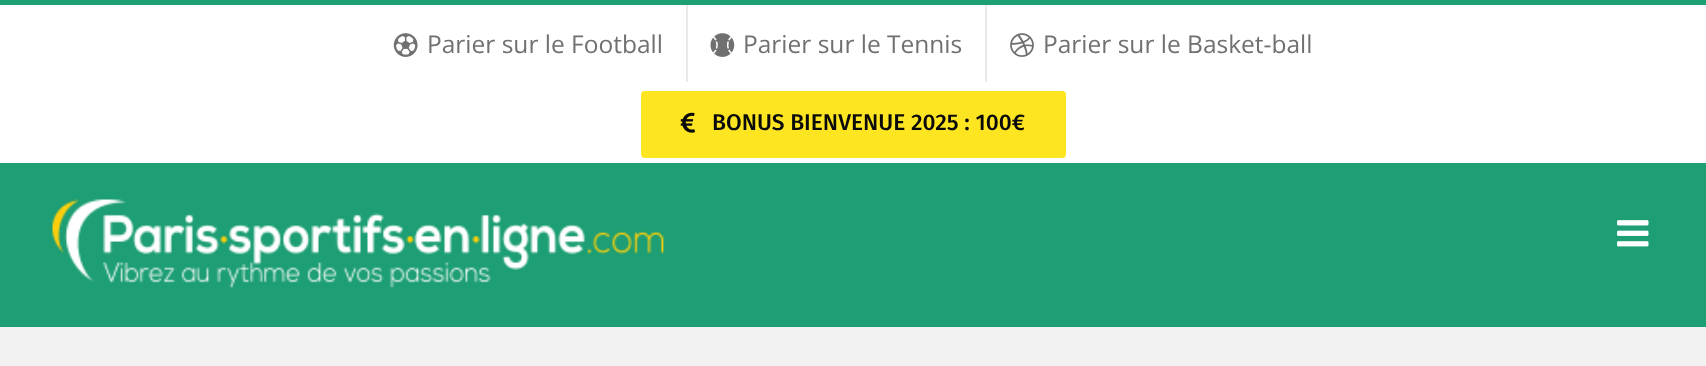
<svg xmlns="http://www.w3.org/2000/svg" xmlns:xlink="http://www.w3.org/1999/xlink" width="1706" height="366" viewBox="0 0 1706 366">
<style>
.cls-1{font:24.5px Open Sans;fill:#707070}
.cls-2{font:500 22.75px Fira Sans;fill:#0a0a0a}
</style>
<rect width="100%" height="100%" fill="#f2f2f2"/>
<rect fill="#ffffff" x="0" y="5" width="1706" height="158"/>
<rect fill="#1d9e74" x="0" y="0" width="1706" height="5"/>
<image xlink:href="image0.png" x="393" y="33" width="25" height="24"/>
<rect fill="#eaeaea" x="686" y="5" width="2" height="77"/>
<image xlink:href="image1.png" x="710" y="33" width="25" height="24"/>
<rect fill="#eaeaea" x="985" y="5" width="2" height="77"/>
<image xlink:href="image2.png" x="1010" y="33" width="24" height="24"/>
<rect fill="#fee521" x="641" y="91" width="425" height="67" rx="4"/>
<image xlink:href="image3.png" x="680" y="112" width="15" height="21"/>
<rect fill="#1d9e74" x="0" y="163" width="1706" height="164"/>
<image xlink:href="image4.png" x="52" y="199" width="612" height="89"/>
<image xlink:href="image5.png" x="1617" y="220" width="32" height="27"/>
<text class="cls-1" x="427" y="53">Parier sur le Football</text>
<text class="cls-1" x="743" y="53">Parier sur le Tennis</text>
<text class="cls-1" x="1043" y="53">Parier sur le Basket-ball</text>
<text class="cls-2" x="712" y="130">BONUS BIENVENUE 2025 : 100€</text>
</svg>
